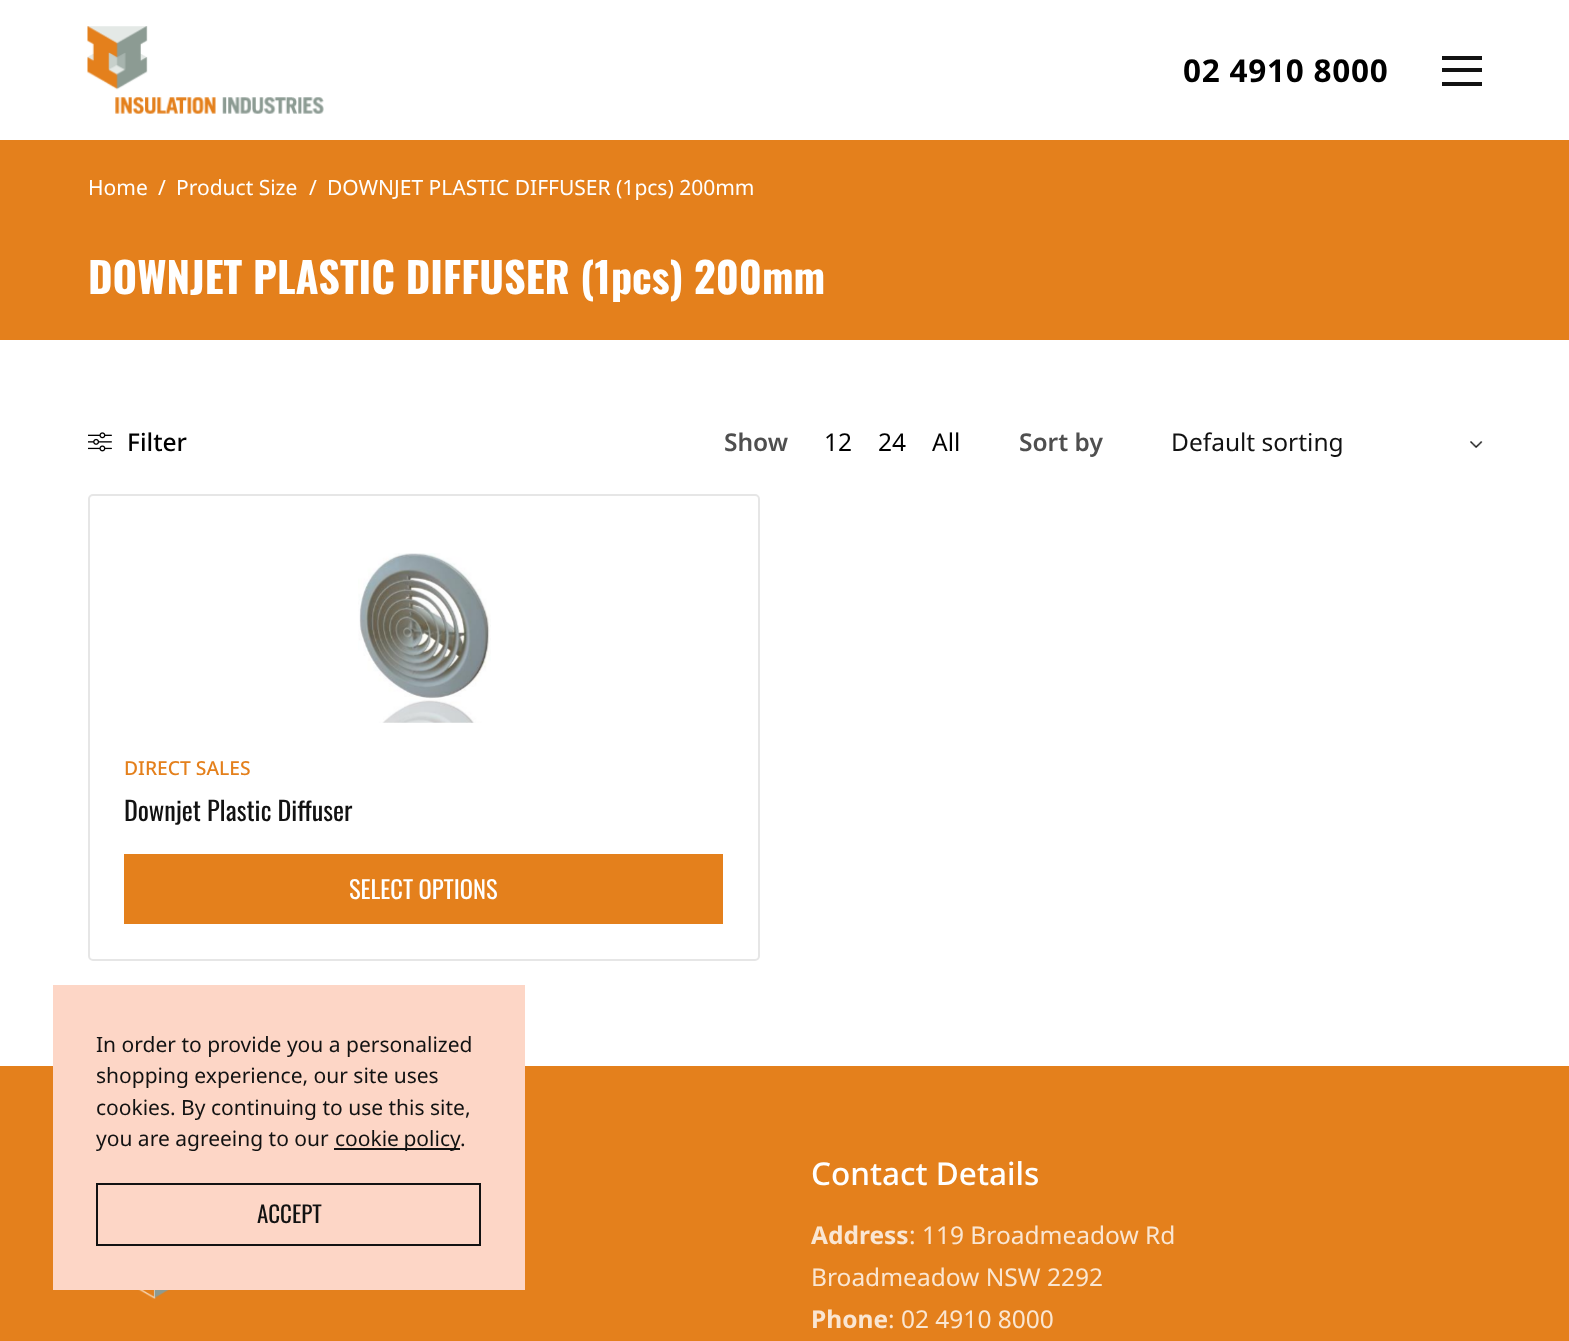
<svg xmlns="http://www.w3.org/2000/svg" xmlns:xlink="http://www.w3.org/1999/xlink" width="1569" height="1341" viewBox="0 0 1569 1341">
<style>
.cls-1{font:bold 31.5px Noto Sans;letter-spacing:0.75px;fill:#000000}
.cls-2{font:21px Noto Sans;fill:#ffffff}
.cls-3{font:bold 42px Oswald;fill:#ffffff}
.cls-4{font:500 24.5px Noto Sans;fill:#000000}
.cls-5{font:600 24.5px Noto Sans;fill:#4f4f4f}
.cls-6{font:24.5px Noto Sans;fill:#000000}
.cls-7{font:24.5px Noto Sans;fill:#121212}
.cls-8{font:500 19.25px Noto Sans;fill:#e4801c}
.cls-9{font:26.25px Oswald;fill:#121212}
.cls-10{font:24.5px Oswald;fill:#ffffff}
.cls-11{font:500 31.5px Noto Sans;fill:#ffffff}
.cls-12{font:bold 24.5px Noto Sans;fill:#fae6d2}
.cls-13{font:24.5px Noto Sans;fill:#fae6d2}
.cls-14{font:21px Noto Sans;fill:#121212}
.cls-15{font:23px Oswald;fill:#121212}
</style>
<rect width="100%" height="100%" fill="#ffffff"/>
<image xlink:href="image0.png" x="87" y="26" width="237" height="88"/>
<rect fill="#121212" x="1442" y="56" width="40" height="4"/>
<rect fill="#121212" x="1442" y="68" width="40" height="4"/>
<rect fill="#121212" x="1442" y="82" width="40" height="4"/>
<rect fill="#e4801c" x="0" y="140" width="1569" height="200"/>
<image xlink:href="image1.png" x="88" y="432" width="24" height="20"/>
<image xlink:href="image2.png" x="1470" y="441" width="13" height="7"/>
<rect fill="none" stroke="#e6e6e6" stroke-width="2" x="89" y="495" width="670" height="465" rx="4"/>
<image xlink:href="image3.png" x="358" y="553" width="133" height="170"/>
<rect fill="#e4801c" x="124" y="854" width="599" height="70"/>
<rect fill="#e4801c" x="0" y="1066" width="1569" height="275"/>
<image xlink:href="image4.png" x="138" y="1290" width="32" height="9"/>
<rect fill="#fdd6c6" x="53" y="985" width="472" height="305"/>
<rect fill="#121212" x="334" y="1148" width="126" height="2"/>
<rect fill="none" stroke="#121212" stroke-width="2" x="97" y="1184" width="383" height="61"/>
<text class="cls-1" x="1183" y="82">02 4910 8000</text>
<text class="cls-2" x="88" y="195">Home</text>
<text class="cls-2" x="158" y="195">/</text>
<text class="cls-2" x="176" y="195">Product Size</text>
<text class="cls-2" x="309" y="195">/</text>
<text class="cls-2" x="327" y="195">DOWNJET PLASTIC DIFFUSER (1pcs) 200mm</text>
<text class="cls-3" x="88" y="294">DOWNJET PLASTIC DIFFUSER (1pcs) 200mm</text>
<text class="cls-4" x="127" y="451">Filter</text>
<text class="cls-5" x="724" y="451">Show</text>
<text class="cls-6" x="824" y="451">12</text>
<text class="cls-6" x="878" y="451">24</text>
<text class="cls-6" x="932" y="451">All</text>
<text class="cls-5" x="1019" y="451">Sort by</text>
<text class="cls-7" x="1171" y="451">Default sorting</text>
<text class="cls-8" x="124" y="775">DIRECT SALES</text>
<text class="cls-9" x="124" y="821">Downjet Plastic Diffuser</text>
<text class="cls-10" x="349" y="899">SELECT OPTIONS</text>
<text class="cls-11" x="811" y="1185">Contact Details</text>
<text class="cls-12" x="811" y="1244">Address</text>
<text class="cls-13" x="909" y="1244">: 119 Broadmeadow Rd</text>
<text class="cls-13" x="811" y="1286">Broadmeadow NSW 2292</text>
<text class="cls-12" x="811" y="1328">Phone</text>
<text class="cls-13" x="888" y="1328">: 02 4910 8000</text>
<text class="cls-14"><tspan x="96" y="1052">In order to provide you a personalized</tspan><tspan x="96" y="1083">shopping experience, our site uses</tspan><tspan x="96" y="1115">cookies. By continuing to use this site,</tspan><tspan x="96" y="1146">you are agreeing to our</tspan></text>
<text class="cls-14" x="335" y="1146" word-spacing="-1">cookie policy</text>
<text class="cls-14" x="460" y="1146">.</text>
<text class="cls-15" x="257" y="1223">ACCEPT</text>
</svg>
